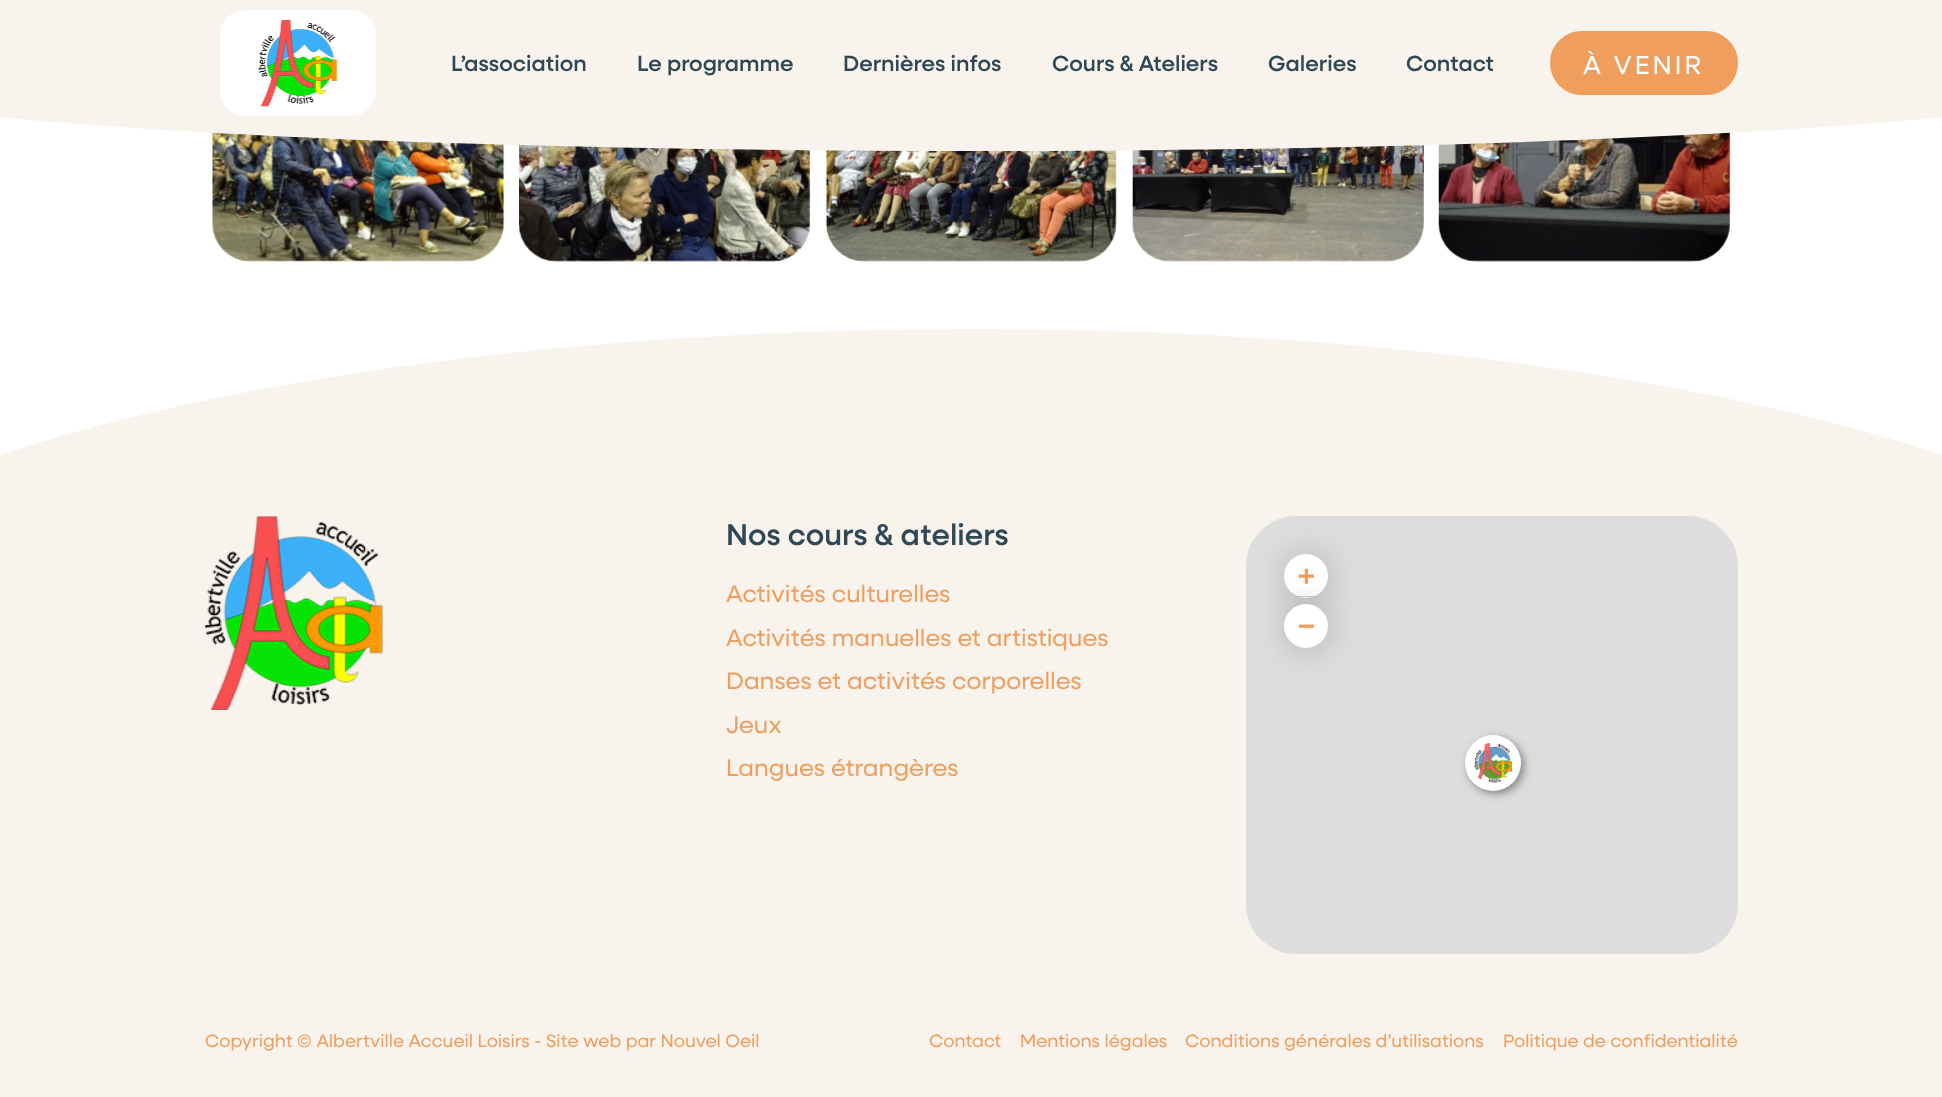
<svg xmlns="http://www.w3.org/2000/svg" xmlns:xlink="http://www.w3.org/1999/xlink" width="1942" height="1097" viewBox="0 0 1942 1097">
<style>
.cls-1{font:500 22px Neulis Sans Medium;fill:#2f4855}
.cls-2{font:26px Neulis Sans;letter-spacing:3px;fill:#ffffff}
.cls-3{font:500 30px Neulis Sans Medium;fill:#2f4855}
.cls-4{font:24px Neulis Sans;fill:#ef9e5d}
.cls-5{font:bold 28px DejaVu Sans Mono;fill:#ef9e5d}
.cls-6{font:18px Neulis Sans;fill:#ef9e5d}
</style>
<rect width="100%" height="100%" fill="#ffffff"/>
<image xlink:href="image1.png" x="212" y="132" width="293" height="130"/>
<image xlink:href="image2.png" x="519" y="145" width="292" height="117"/>
<image xlink:href="image3.png" x="825" y="150" width="292" height="112"/>
<image xlink:href="image4.png" x="1132" y="145" width="292" height="117"/>
<image xlink:href="image5.png" x="1438" y="132" width="293" height="130"/>
<path fill="#f8f3ec" d="M-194 0H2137V76C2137 117 1615 151 971 151C328 151-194 117-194 76Z"/>
<rect fill="#ffffff" x="220" y="10" width="156" height="106" rx="25"/>
<image xlink:href="image0.png" x="257" y="20" width="81" height="87"/>
<rect fill="#ef9e5d" stroke="#ef9e5d" stroke-width="3" x="1551.5" y="32.5" width="185" height="61" rx="30.5"/>
<path fill="#f8f3ec" d="M971 329C1668 329 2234 485 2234 679V1029H-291V679C-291 485 274 329 971 329Z"/>
<image xlink:href="image6.png" x="205" y="516" width="178" height="194"/>
<rect fill="#dddddd" x="1246" y="516" width="492" height="438" rx="50"/>
<rect fill="#000000" fill-opacity="0.2" filter="blur(15.5px)" x="1285" y="555" width="44" height="44" rx="22"/>
<circle fill="#ffffff" cx="1306" cy="576" r="22"/>
<rect fill="#cccccc" x="1295" y="596" width="21" height="1"/>
<rect fill="#000000" fill-opacity="0.2" filter="blur(15.5px)" x="1285" y="605" width="44" height="44" rx="22"/>
<circle fill="#ffffff" cx="1306" cy="626" r="22"/>
<rect fill="#000000" fill-opacity="0.4" filter="blur(4px)" x="1468" y="738" width="56" height="56" rx="28"/>
<circle fill="#ffffff" cx="1493" cy="763" r="28"/>
<image xlink:href="image7.png" x="1474" y="743" width="38" height="40"/>
<rect fill="#f8f3ec" x="0" y="1029" width="1942" height="68"/>
<text class="cls-1" x="451" y="71">L’association</text>
<text class="cls-1" x="637" y="71">Le programme</text>
<text class="cls-1" x="843" y="71">Dernières infos</text>
<text class="cls-1" x="1052" y="71">Cours &amp; Ateliers</text>
<text class="cls-1" x="1268" y="71">Galeries</text>
<text class="cls-1" x="1406" y="71">Contact</text>
<text class="cls-2" x="1583" y="74">À VENIR</text>
<text class="cls-3" x="726" y="545">Nos cours &amp; ateliers</text>
<text class="cls-4"><tspan x="726" y="602">Activités culturelles</tspan><tspan x="726" y="646">Activités manuelles et artistiques</tspan><tspan x="726" y="689">Danses et activités corporelles</tspan><tspan x="726" y="733">Jeux</tspan><tspan x="726" y="776">Langues étrangères</tspan></text>
<text class="cls-5"><tspan x="1298" y="585">+</tspan><tspan x="1298" y="635">−</tspan></text>
<text class="cls-6" x="205" y="1047">Copyright © Albertville Accueil Loisirs - Site web par Nouvel Oeil</text>
<text class="cls-6" x="929" y="1047">Contact</text>
<text class="cls-6" x="1020" y="1047">Mentions légales</text>
<text class="cls-6" x="1185" y="1047">Conditions générales d’utilisations</text>
<text class="cls-6" x="1503" y="1047">Politique de confidentialité</text>
</svg>
